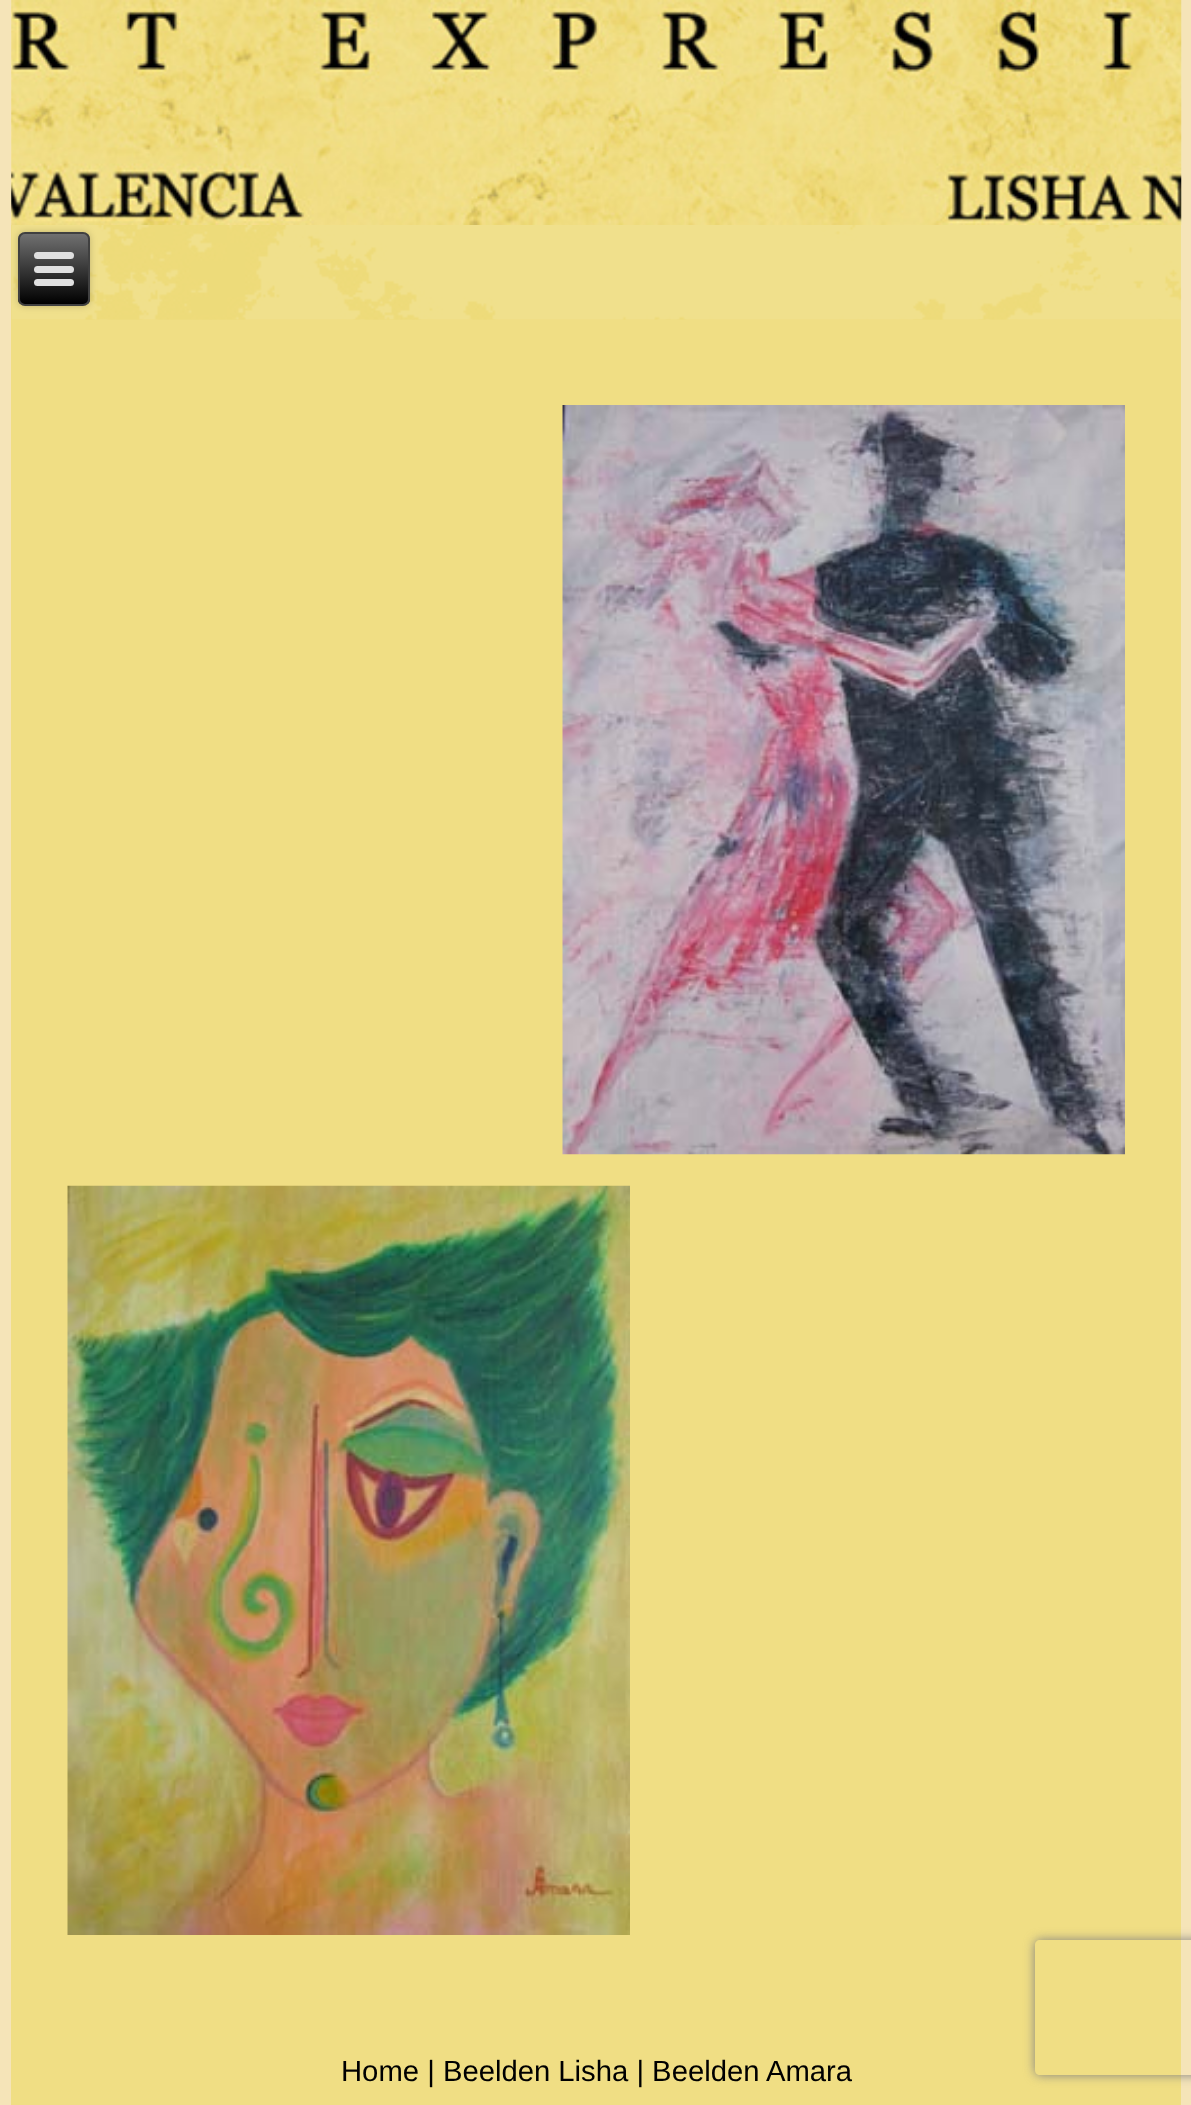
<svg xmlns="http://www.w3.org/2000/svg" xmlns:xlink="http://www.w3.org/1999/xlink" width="1191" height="2105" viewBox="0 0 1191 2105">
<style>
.cls-1{font:29.25px Liberation Sans;fill:#000000}
</style>
<defs>
<clipPath id="clip1"><rect x="18" y="232" width="72" height="74" rx="7"/></clipPath>
<linearGradient id="g1" gradientUnits="userSpaceOnUse" x1="54" y1="234" x2="54" y2="304"><stop offset="0" stop-color="#707070"/><stop offset="1" stop-color="#000000"/></linearGradient>
<clipPath id="clip2"><path d="M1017 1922H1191V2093H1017ZM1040 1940H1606C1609 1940 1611 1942 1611 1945V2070C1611 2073 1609 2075 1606 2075H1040C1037 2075 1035 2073 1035 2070V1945C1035 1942 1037 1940 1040 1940Z" clip-rule="evenodd"/></clipPath>
</defs>
<rect width="100%" height="100%" fill="#f5e4b8"/>
<image xlink:href="image0.png" x="11" y="0" width="1171" height="225"/>
<rect fill="#efdd80" x="11" y="225" width="1170" height="95"/>
<image xlink:href="image1.png" x="11" y="225" width="1171" height="95"/>
<rect fill="#000000" fill-opacity="0.2" filter="blur(3.5px)" x="18" y="232" width="72" height="74" rx="7"/>
<g clip-path="url(#clip1)">
<rect fill="url(#g1)" x="18" y="234" width="72" height="70"/>
</g>
<rect fill="none" stroke="#404040" stroke-width="2" x="19" y="233" width="70" height="72" rx="6"/>
<rect fill="#e0e0e0" x="34" y="252" width="40" height="7" rx="3.5"/>
<rect fill="#e0e0e0" x="34" y="266" width="40" height="7" rx="3.5"/>
<rect fill="#e0e0e0" x="34" y="279" width="40" height="7" rx="3.5"/>
<rect fill="#f0de84" x="11" y="320" width="1170" height="1785"/>
<image xlink:href="image2.png" x="562" y="405" width="563" height="750"/>
<image xlink:href="image3.png" x="67" y="1185" width="563" height="750"/>
<g clip-path="url(#clip2)">
<rect fill="#808080" filter="blur(5.5px)" x="1035" y="1940" width="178" height="135" rx="5"/>
</g>
<text class="cls-1" x="341" y="2081">Home | Beelden Lisha | Beelden Amara</text>
</svg>
